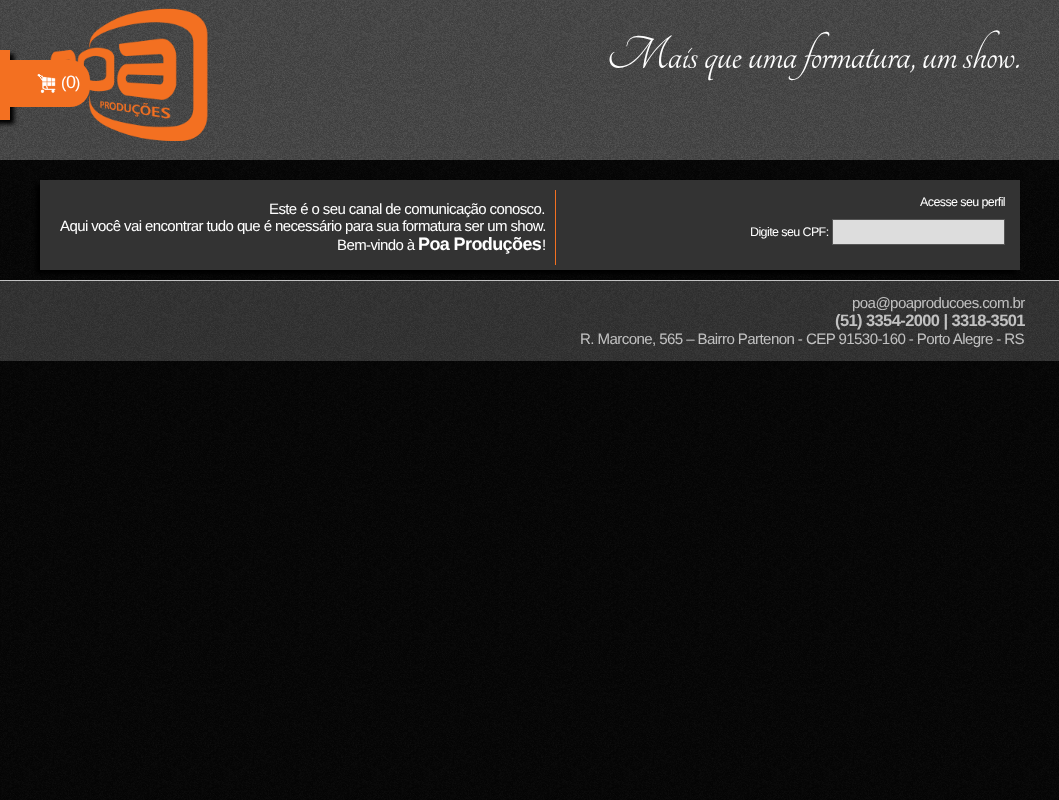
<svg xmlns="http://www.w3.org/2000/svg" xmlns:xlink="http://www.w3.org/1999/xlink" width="1059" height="800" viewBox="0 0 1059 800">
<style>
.cls-1{font:50px Tangerine;letter-spacing:-0.6px;fill:#ffffff}
.cls-2{font:16px Liberation Sans;letter-spacing:-0.6px;fill:#ffffff}
.cls-3{font:18px Liberation Sans;letter-spacing:-0.6px;fill:#ffffff}
.cls-4{font:15px Liberation Sans;letter-spacing:-0.6px;fill:#ffffff}
.cls-5{font:bold 18px Liberation Sans;letter-spacing:-0.6px;fill:#ffffff}
.cls-6{font:12.5px Liberation Sans;letter-spacing:-0.6px;fill:#ffffff}
.cls-7{font:15.1px Liberation Sans;letter-spacing:-0.6px;fill:#c1c1c1}
.cls-8{font:bold 16.5px Liberation Sans;letter-spacing:-0.6px;fill:#c1c1c1}
</style>
<rect width="100%" height="100%" fill="#ffffff"/>
<image xlink:href="image0.png" x="0" y="160" width="1059" height="640"/>
<image xlink:href="image1.png" x="0" y="0" width="1059" height="160"/>
<image xlink:href="image2.png" x="50" y="8" width="158" height="133"/>
<rect fill="#000000" filter="blur(2px)" x="-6" y="54" width="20" height="70"/>
<rect fill="#f37021" x="0" y="50" width="10" height="70"/>
<rect fill="#f37021" x="-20" y="60" width="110" height="47" rx="20"/>
<image xlink:href="image3.png" x="37" y="73" width="19" height="20"/>
<rect fill="#000000" filter="blur(2px)" x="36" y="184" width="980" height="90"/>
<rect fill="#333333" x="40" y="180" width="980" height="90"/>
<rect fill="#f37021" x="555" y="190" width="1" height="75"/>
<rect fill="#dddddd" stroke="#555555" x="832.5" y="219.5" width="172" height="25"/>
<image xlink:href="image4.png" x="0" y="280" width="1059" height="81"/>
<rect fill="#ffffff" fill-opacity="0.7" x="0" y="280" width="1059" height="1"/>
<text class="cls-1" x="607" y="68">Mais que uma formatura, um show.</text>
<text class="cls-2" x="61" y="88">(</text>
<text class="cls-3" x="66" y="88">0</text>
<text class="cls-2" x="75" y="88">)</text>
<text class="cls-4" x="269" y="214">Este é o seu canal de comunicação conosco.</text>
<text class="cls-4" x="60" y="231">Aqui você vai encontrar tudo que é necessário para sua formatura ser um show.</text>
<text class="cls-4" x="337" y="250">Bem-vindo à</text>
<text class="cls-5" x="418" y="250">Poa Produções</text>
<text class="cls-4" x="542" y="250">!</text>
<text class="cls-6" x="750" y="236">Digite seu CPF:</text>
<text class="cls-6" x="920" y="206">Acesse seu perfil</text>
<text class="cls-7" x="852" y="308">poa@poaproducoes.com.br</text>
<text class="cls-8" x="835" y="326">(51) 3354-2000 | 3318-3501</text>
<text class="cls-7" x="580" y="344">R. Marcone, 565 – Bairro Partenon - CEP 91530-160 - Porto Alegre - RS</text>
</svg>
